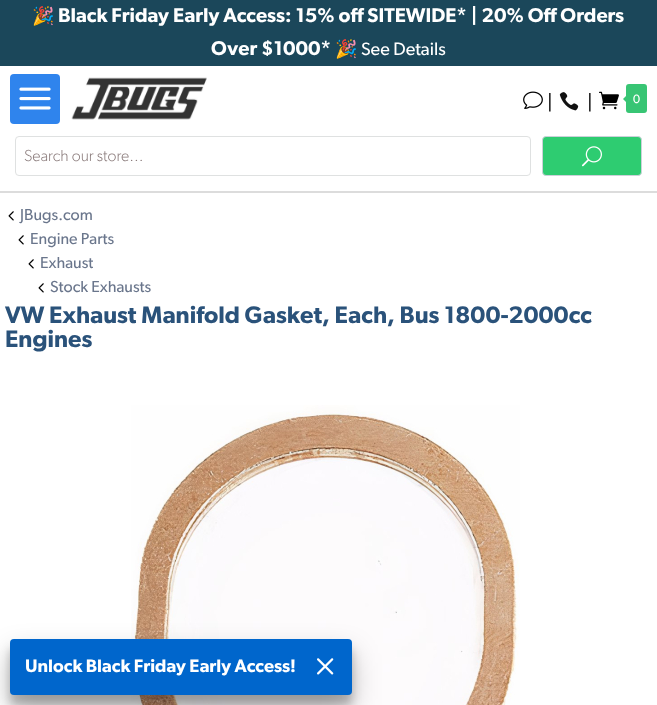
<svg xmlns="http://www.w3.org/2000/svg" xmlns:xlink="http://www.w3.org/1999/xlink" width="657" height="705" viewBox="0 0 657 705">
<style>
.cls-1{font:18px Noto Color Emoji;fill:#ffffff}
.cls-2{font:600 20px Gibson;fill:#ffffff}
.cls-3{font:18px Gibson;fill:#ffffff}
.cls-4{font:20px Gibson;fill:#000000}
.cls-5{font:12px Gibson;fill:#ffffff}
.cls-6{font:300 16px Gibson;fill:#8a7b7b}
.cls-7{font:16px Gibson;fill:#6a768c}
.cls-8{font:600 24px Gibson;fill:#2a527a}
.cls-9{font:600 18px Gibson;fill:#ffffff}
</style>
<rect width="100%" height="100%" fill="#ffffff"/>
<rect fill="#1b475a" x="0" y="0" width="657" height="66"/>
<rect fill="#2f84ed" x="10" y="74" width="50" height="50" rx="4"/>
<image xlink:href="image0.png" x="19" y="87" width="32" height="23"/>
<image xlink:href="image1.png" x="71" y="77" width="136" height="43"/>
<image xlink:href="image2.png" x="523" y="91" width="20" height="18"/>
<image xlink:href="image3.png" x="559" y="92" width="20" height="19"/>
<image xlink:href="image4.png" x="599" y="91" width="20" height="19"/>
<rect fill="#38c574" stroke="#38c574" stroke-width="2" x="627" y="85" width="19" height="27" rx="2"/>
<path fill="#38c574" d="M628 94V104L623 99Z"/>
<rect fill="none" stroke="#dfe1e1" x="15.5" y="136.5" width="515" height="39" rx="3.5"/>
<rect fill="#2ecc71" stroke="#ccd1d9" x="542.5" y="136.5" width="99" height="39" rx="3.5"/>
<image xlink:href="image5.png" x="582" y="146" width="20" height="21"/>
<rect fill="#dcdcdc" x="0" y="191" width="657" height="2"/>
<image xlink:href="image6.png" x="8" y="211" width="6" height="10"/>
<image xlink:href="image6.png" x="18" y="235" width="6" height="10"/>
<image xlink:href="image6.png" x="28" y="259" width="6" height="10"/>
<image xlink:href="image6.png" x="38" y="283" width="6" height="10"/>
<image xlink:href="image7.png" x="131" y="405" width="389" height="300"/>
<rect fill="#000000" fill-opacity="0.22" filter="blur(5px)" x="10" y="649" width="342" height="56" rx="4"/>
<rect fill="#000000" fill-opacity="0.25" filter="blur(14px)" x="10" y="653" width="342" height="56" rx="4"/>
<rect fill="#0066cc" x="10" y="639" width="342" height="56" rx="4"/>
<image xlink:href="image8.png" x="317" y="658" width="17" height="17"/>
<text class="cls-1" x="32" y="22">🎉</text>
<text class="cls-2" x="58" y="22">Black Friday Early Access: 15% off SITEWIDE* | 20% Off Orders</text>
<text class="cls-2" x="211" y="55">Over $1000*</text>
<text class="cls-1" x="335" y="55">🎉</text>
<text class="cls-3" x="361" y="55">See Details</text>
<text class="cls-4" x="547" y="109">|</text>
<text class="cls-4" x="587" y="109">|</text>
<text class="cls-5" x="633" y="103">0</text>
<text class="cls-6" x="24" y="161">Search our store…</text>
<text class="cls-7" x="20" y="220">JBugs.com</text>
<text class="cls-7" x="30" y="244">Engine Parts</text>
<text class="cls-7" x="40" y="268">Exhaust</text>
<text class="cls-7" x="50" y="292">Stock Exhausts</text>
<text class="cls-8"><tspan x="5" y="323">VW Exhaust Manifold Gasket, Each, Bus 1800-2000cc</tspan><tspan x="5" y="347">Engines</tspan></text>
<text class="cls-9" x="25" y="672">Unlock Black Friday Early Access!</text>
</svg>
